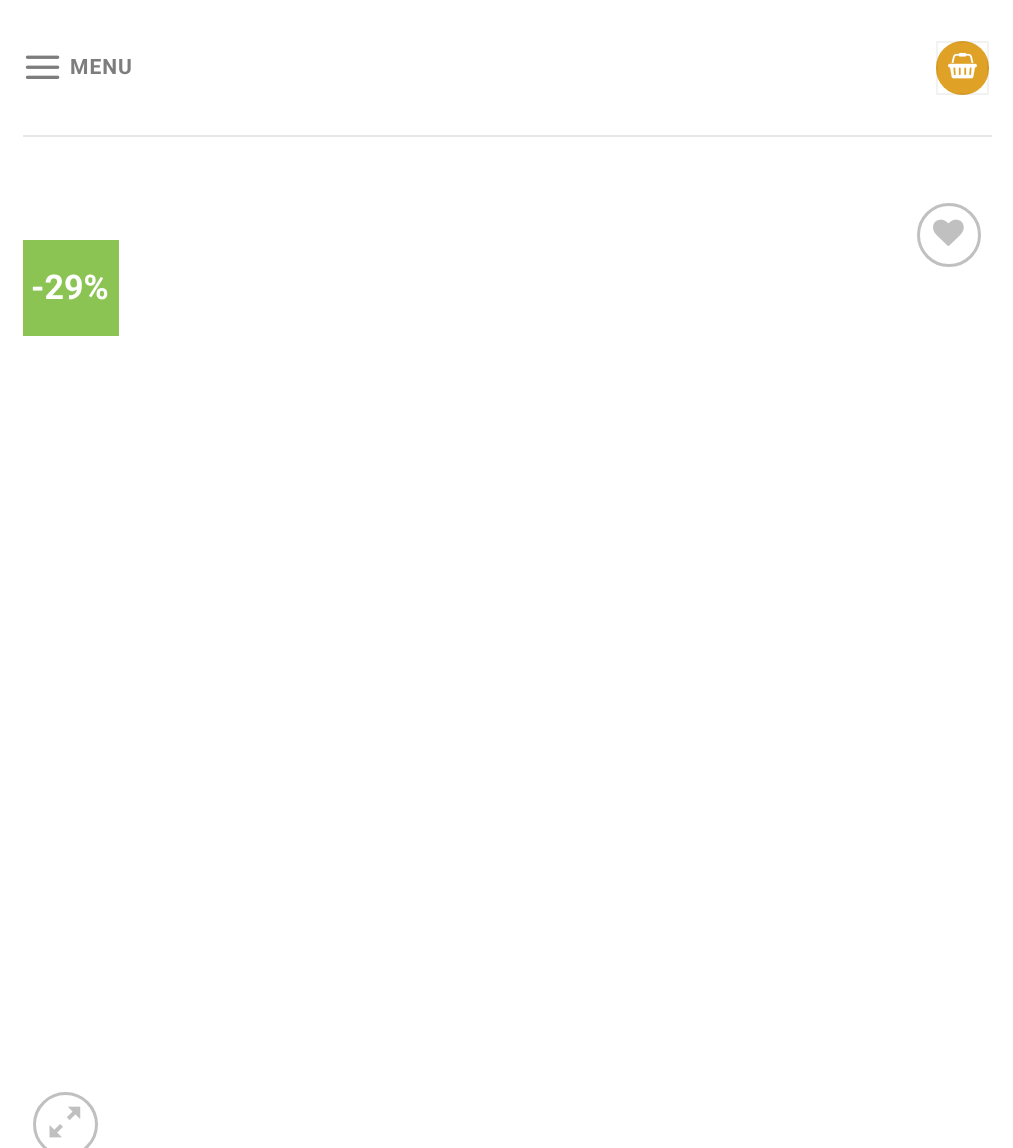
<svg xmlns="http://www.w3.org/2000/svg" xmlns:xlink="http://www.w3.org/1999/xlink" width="1013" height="1148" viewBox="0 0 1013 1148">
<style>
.cls-1{font:bold 21px Roboto;letter-spacing:1px;fill:#7d7d7d}
.cls-2{font:bold 34px Roboto;fill:#ffffff}
</style>
<rect width="100%" height="100%" fill="#ffffff"/>
<image xlink:href="image0.png" x="25" y="55" width="35" height="24"/>
<rect fill="#e0a226" x="936" y="41" width="53" height="54" rx="26.5"/>
<rect fill="none" stroke="#000000" stroke-opacity="0.05" stroke-width="2" x="937" y="42" width="51" height="52"/>
<image xlink:href="image1.png" x="948" y="52" width="29" height="27"/>
<rect fill="#e7e7e7" x="23" y="135" width="969" height="2"/>
<circle fill="none" stroke="#c0c0c0" stroke-width="3" cx="949" cy="235" r="30.5"/>
<image xlink:href="image2.png" x="933" y="219" width="31" height="27"/>
<rect fill="#8cc454" x="23" y="240" width="96" height="96"/>
<circle fill="none" stroke="#c0c0c0" stroke-width="3" cx="65.5" cy="1124.5" r="31"/>
<image xlink:href="image3.png" x="49" y="1106" width="32" height="32"/>
<text class="cls-1" x="70" y="74">MENU</text>
<text class="cls-2" x="31" y="299">-29%</text>
</svg>
